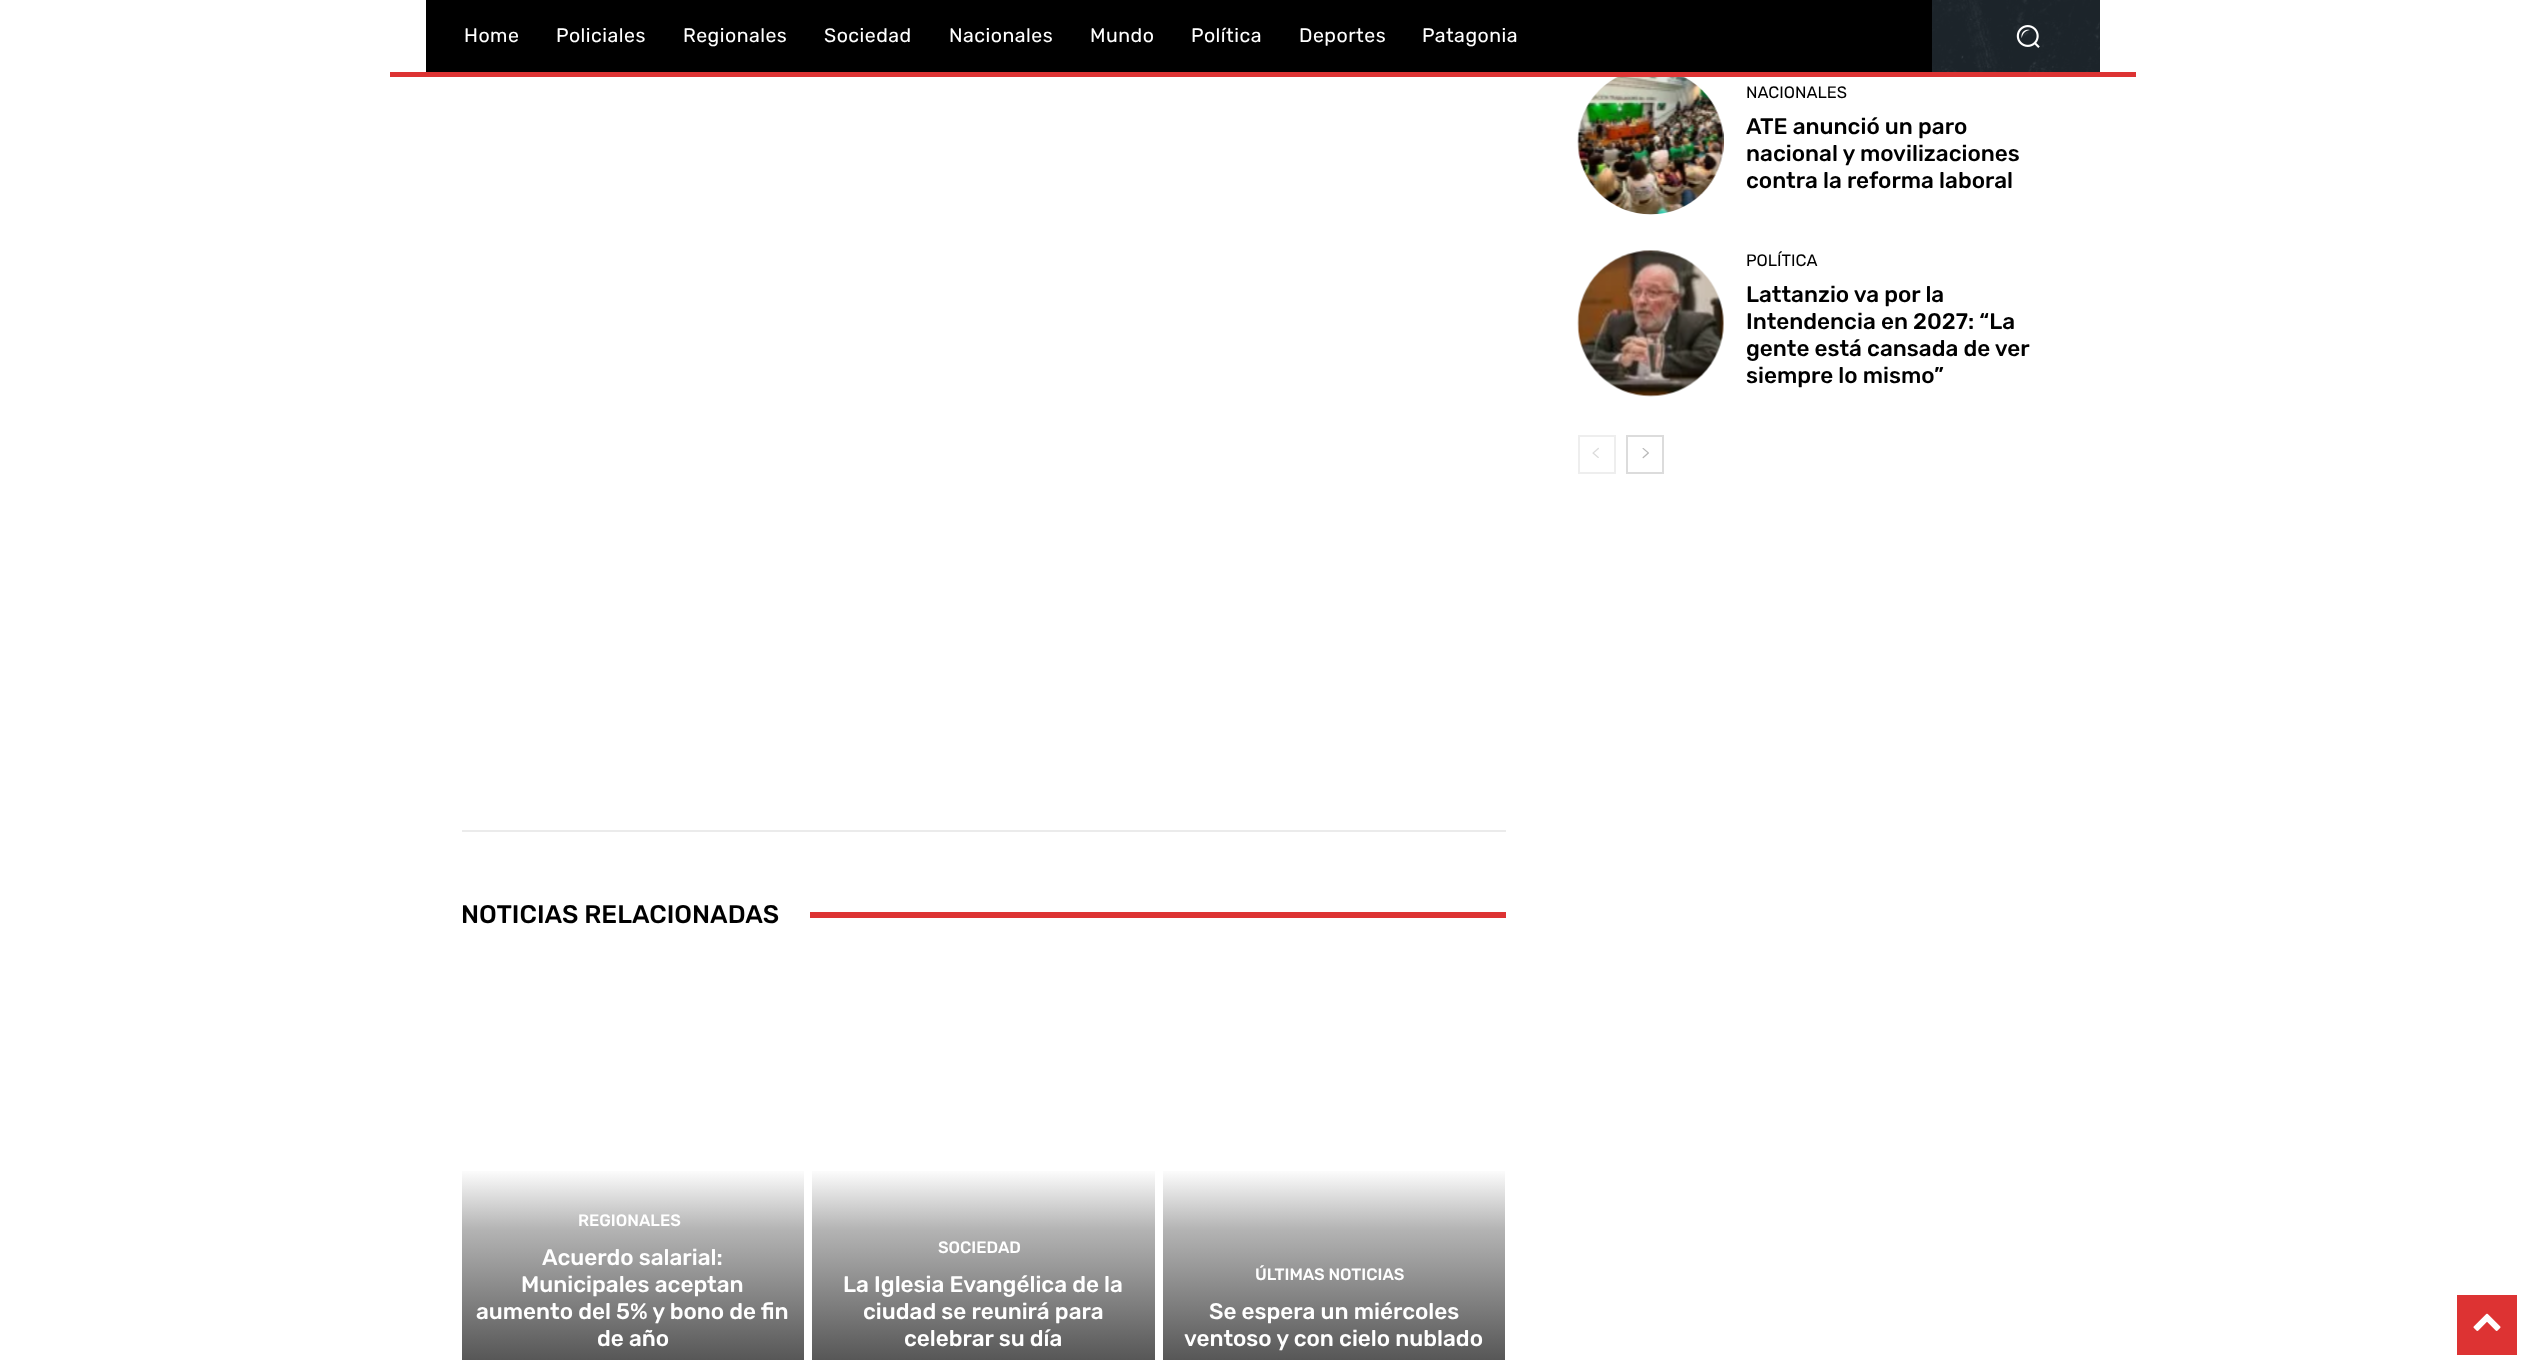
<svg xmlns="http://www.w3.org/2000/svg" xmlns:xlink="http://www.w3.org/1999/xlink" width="2524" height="1360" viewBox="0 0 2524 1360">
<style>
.cls-1{font:19.5px Rubik;letter-spacing:0.5px;fill:#ffffff}
.cls-2{font:16.5px Rubik;fill:#000000}
.cls-3{font:500 22.5px Rubik;fill:#000000}
.cls-4{font:500 25.5px Rubik;fill:#000000}
.cls-5{font:500 16.5px Rubik;fill:#ffffff}
.cls-6{font:500 22.5px Rubik;fill:#ffffff}
</style>
<defs>
<linearGradient id="g1" gradientUnits="userSpaceOnUse" x1="633" y1="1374" x2="633" y2="963"><stop offset="0" stop-color="#4d4d4d"/><stop offset="0.35" stop-color="#b3b3b3"/><stop offset="0.5" stop-color="#ffffff"/><stop offset="1" stop-color="#ffffff"/></linearGradient>
<linearGradient id="g2" gradientUnits="userSpaceOnUse" x1="983" y1="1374" x2="983" y2="963"><stop offset="0" stop-color="#4d4d4d"/><stop offset="0.35" stop-color="#b3b3b3"/><stop offset="0.5" stop-color="#ffffff"/><stop offset="1" stop-color="#ffffff"/></linearGradient>
<linearGradient id="g3" gradientUnits="userSpaceOnUse" x1="1334" y1="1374" x2="1334" y2="963"><stop offset="0" stop-color="#4d4d4d"/><stop offset="0.35" stop-color="#b3b3b3"/><stop offset="0.5" stop-color="#ffffff"/><stop offset="1" stop-color="#ffffff"/></linearGradient>
</defs>
<rect width="100%" height="100%" fill="#ffffff"/>
<rect fill="#232d35" x="1932" y="0" width="168" height="72"/>
<image xlink:href="image0.png" x="1932" y="0" width="168" height="72"/>
<rect fill="#000000" x="426" y="0" width="1506" height="72"/>
<image xlink:href="image1.png" x="2016" y="25" width="24" height="23"/>
<rect fill="#dd3333" x="390" y="72" width="1746" height="5"/>
<image xlink:href="image2.png" x="1577" y="77" width="147" height="138"/>
<image xlink:href="image3.png" x="1577" y="250" width="147" height="147"/>
<rect fill="none" stroke="#eeeeee" stroke-width="2" x="1579" y="436" width="36" height="37"/>
<image xlink:href="image4.png" x="1592" y="447" width="7" height="11"/>
<rect fill="none" stroke="#dcdcdc" stroke-width="2" x="1627" y="436" width="36" height="37"/>
<image xlink:href="image5.png" x="1642" y="448" width="7" height="11"/>
<rect fill="#ebebeb" x="462" y="830" width="1044" height="2"/>
<rect fill="#dd3333" x="810" y="912" width="696" height="6"/>
<rect fill="url(#g1)" x="462" y="1171" width="342" height="189"/>
<rect fill="url(#g2)" x="812" y="1171" width="343" height="189"/>
<rect fill="url(#g3)" x="1163" y="1171" width="342" height="189"/>
<rect fill="#dd3333" x="2457" y="1295" width="60" height="60"/>
<image xlink:href="image6.png" x="2473" y="1313" width="28" height="18"/>
<text class="cls-1" x="464" y="42">Home</text>
<text class="cls-1" x="556" y="42">Policiales</text>
<text class="cls-1" x="683" y="42">Regionales</text>
<text class="cls-1" x="824" y="42">Sociedad</text>
<text class="cls-1" x="949" y="42">Nacionales</text>
<text class="cls-1" x="1090" y="42">Mundo</text>
<text class="cls-1" x="1191" y="42">Política</text>
<text class="cls-1" x="1299" y="42">Deportes</text>
<text class="cls-1" x="1422" y="42">Patagonia</text>
<text class="cls-2" x="1746" y="98">NACIONALES</text>
<text class="cls-3"><tspan x="1746" y="134">ATE anunció un paro</tspan><tspan x="1746" y="161">nacional y movilizaciones</tspan><tspan x="1746" y="188">contra la reforma laboral</tspan></text>
<text class="cls-2" x="1746" y="266">POLÍTICA</text>
<text class="cls-3"><tspan x="1746" y="302">Lattanzio va por la</tspan><tspan x="1746" y="329">Intendencia en 2027: “La</tspan><tspan x="1746" y="356">gente está cansada de ver</tspan><tspan x="1746" y="383">siempre lo mismo”</tspan></text>
<text class="cls-4" x="461" y="923">NOTICIAS RELACIONADAS</text>
<text class="cls-5" x="578" y="1226">REGIONALES</text>
<text class="cls-6" x="542" y="1265">Acuerdo salarial:</text>
<text class="cls-6" x="521" y="1292">Municipales aceptan</text>
<text class="cls-6" x="476" y="1319">aumento del 5% y bono de fin</text>
<text class="cls-6" x="597" y="1346">de año</text>
<text class="cls-5" x="938" y="1253">SOCIEDAD</text>
<text class="cls-6" x="843" y="1292">La Iglesia Evangélica de la</text>
<text class="cls-6" x="863" y="1319">ciudad se reunirá para</text>
<text class="cls-6" x="904" y="1346">celebrar su día</text>
<text class="cls-5" x="1255" y="1280">ÚLTIMAS NOTICIAS</text>
<text class="cls-6" x="1209" y="1319">Se espera un miércoles</text>
<text class="cls-6" x="1184" y="1346">ventoso y con cielo nublado</text>
</svg>
